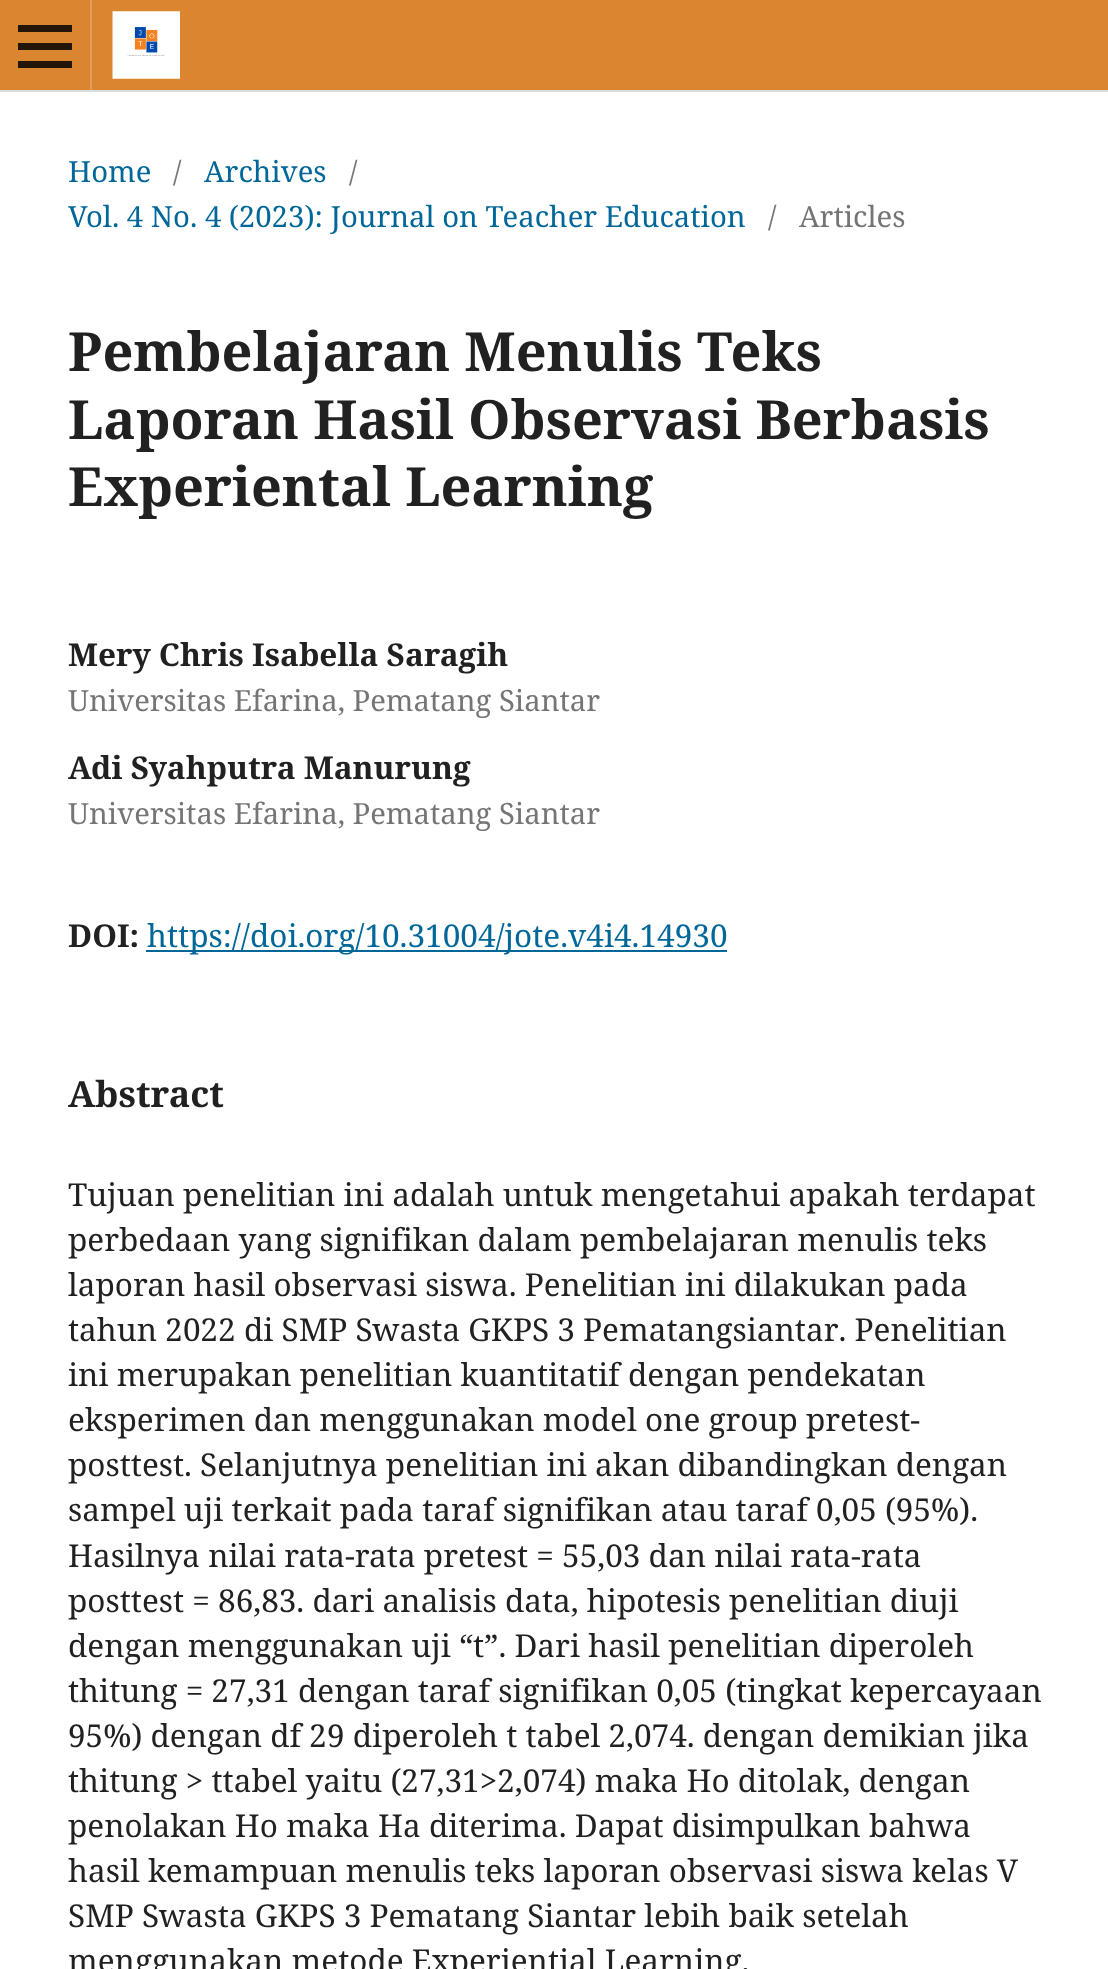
<svg xmlns="http://www.w3.org/2000/svg" xmlns:xlink="http://www.w3.org/1999/xlink" width="1108" height="1969" viewBox="0 0 1108 1969">
<style>
.cls-1{font:29.25px Noto Serif;fill:#006798}
.cls-2{font:29.25px Noto Serif;fill:#757575}
.cls-3{font:bold 54px Noto Serif;fill:#212121}
.cls-4{font:bold 31.5px Noto Serif;fill:#212121}
.cls-5{font:31.5px Noto Serif;fill:#006798}
.cls-6{font:bold 36px Noto Serif;fill:#212121}
.cls-7{font:31.5px Noto Serif;fill:#212121}
</style>
<rect width="100%" height="100%" fill="#ffffff"/>
<rect fill="#da852f" x="0" y="0" width="1108" height="90"/>
<rect fill="#dddddd" x="0" y="90" width="1108" height="2"/>
<rect fill="#e19d59" x="90" y="0" width="2" height="90"/>
<rect fill="#231508" x="18" y="61" width="54" height="7"/>
<rect fill="#231508" x="18" y="25" width="54" height="7"/>
<rect fill="#231508" x="18" y="43" width="54" height="7"/>
<image xlink:href="image0.png" x="112" y="11" width="68" height="68"/>
<rect fill="#006798" x="146" y="950" width="581" height="2"/>
<text class="cls-1" x="68" y="182">Home</text>
<text class="cls-2" x="173" y="182">/</text>
<text class="cls-1" x="204" y="182">Archives</text>
<text class="cls-2" x="349" y="182">/</text>
<text class="cls-1" x="68" y="227">Vol. 4 No. 4 (2023): Journal on Teacher Education</text>
<text class="cls-2" x="768" y="227">/</text>
<text class="cls-2" x="799" y="227">Articles</text>
<text class="cls-3"><tspan x="68" y="371">Pembelajaran Menulis Teks</tspan><tspan x="68" y="439">Laporan Hasil Observasi Berbasis</tspan><tspan x="68" y="506">Experiental Learning</tspan></text>
<text class="cls-4" x="68" y="666">Mery Chris Isabella Saragih</text>
<text class="cls-2" x="68" y="711">Universitas Efarina, Pematang Siantar</text>
<text class="cls-4" x="68" y="779">Adi Syahputra Manurung</text>
<text class="cls-2" x="68" y="824">Universitas Efarina, Pematang Siantar</text>
<text class="cls-4" x="68" y="947">DOI:</text>
<text class="cls-5" x="147" y="947">https://doi.org/10.31004/jote.v4i4.14930</text>
<text class="cls-6" x="68" y="1107">Abstract</text>
<text class="cls-7"><tspan x="68" y="1206">Tujuan penelitian ini adalah untuk mengetahui apakah terdapat</tspan><tspan x="68" y="1251">perbedaan yang signifikan dalam pembelajaran menulis teks</tspan><tspan x="68" y="1296">laporan hasil observasi siswa. Penelitian ini dilakukan pada</tspan><tspan x="68" y="1341">tahun 2022 di SMP Swasta GKPS 3 Pematangsiantar. Penelitian</tspan><tspan x="68" y="1386">ini merupakan penelitian kuantitatif dengan pendekatan</tspan><tspan x="68" y="1431">eksperimen dan menggunakan model one group pretest-</tspan><tspan x="68" y="1476">posttest. Selanjutnya penelitian ini akan dibandingkan dengan</tspan><tspan x="68" y="1521">sampel uji terkait pada taraf signifikan atau taraf 0,05 (95%).</tspan><tspan x="68" y="1567">Hasilnya nilai rata-rata pretest = 55,03 dan nilai rata-rata</tspan><tspan x="68" y="1612">posttest = 86,83. dari analisis data, hipotesis penelitian diuji</tspan><tspan x="68" y="1657">dengan menggunakan uji “t”. Dari hasil penelitian diperoleh</tspan><tspan x="68" y="1702">thitung = 27,31 dengan taraf signifikan 0,05 (tingkat kepercayaan</tspan><tspan x="68" y="1747">95%) dengan df 29 diperoleh t tabel 2,074. dengan demikian jika</tspan><tspan x="68" y="1792">thitung &gt; ttabel yaitu (27,31&gt;2,074) maka Ho ditolak, dengan</tspan><tspan x="68" y="1837">penolakan Ho maka Ha diterima. Dapat disimpulkan bahwa</tspan><tspan x="68" y="1882">hasil kemampuan menulis teks laporan observasi siswa kelas V</tspan><tspan x="68" y="1927">SMP Swasta GKPS 3 Pematang Siantar lebih baik setelah</tspan><tspan x="68" y="1972">menggunakan metode Experiential Learning.</tspan></text>
</svg>
